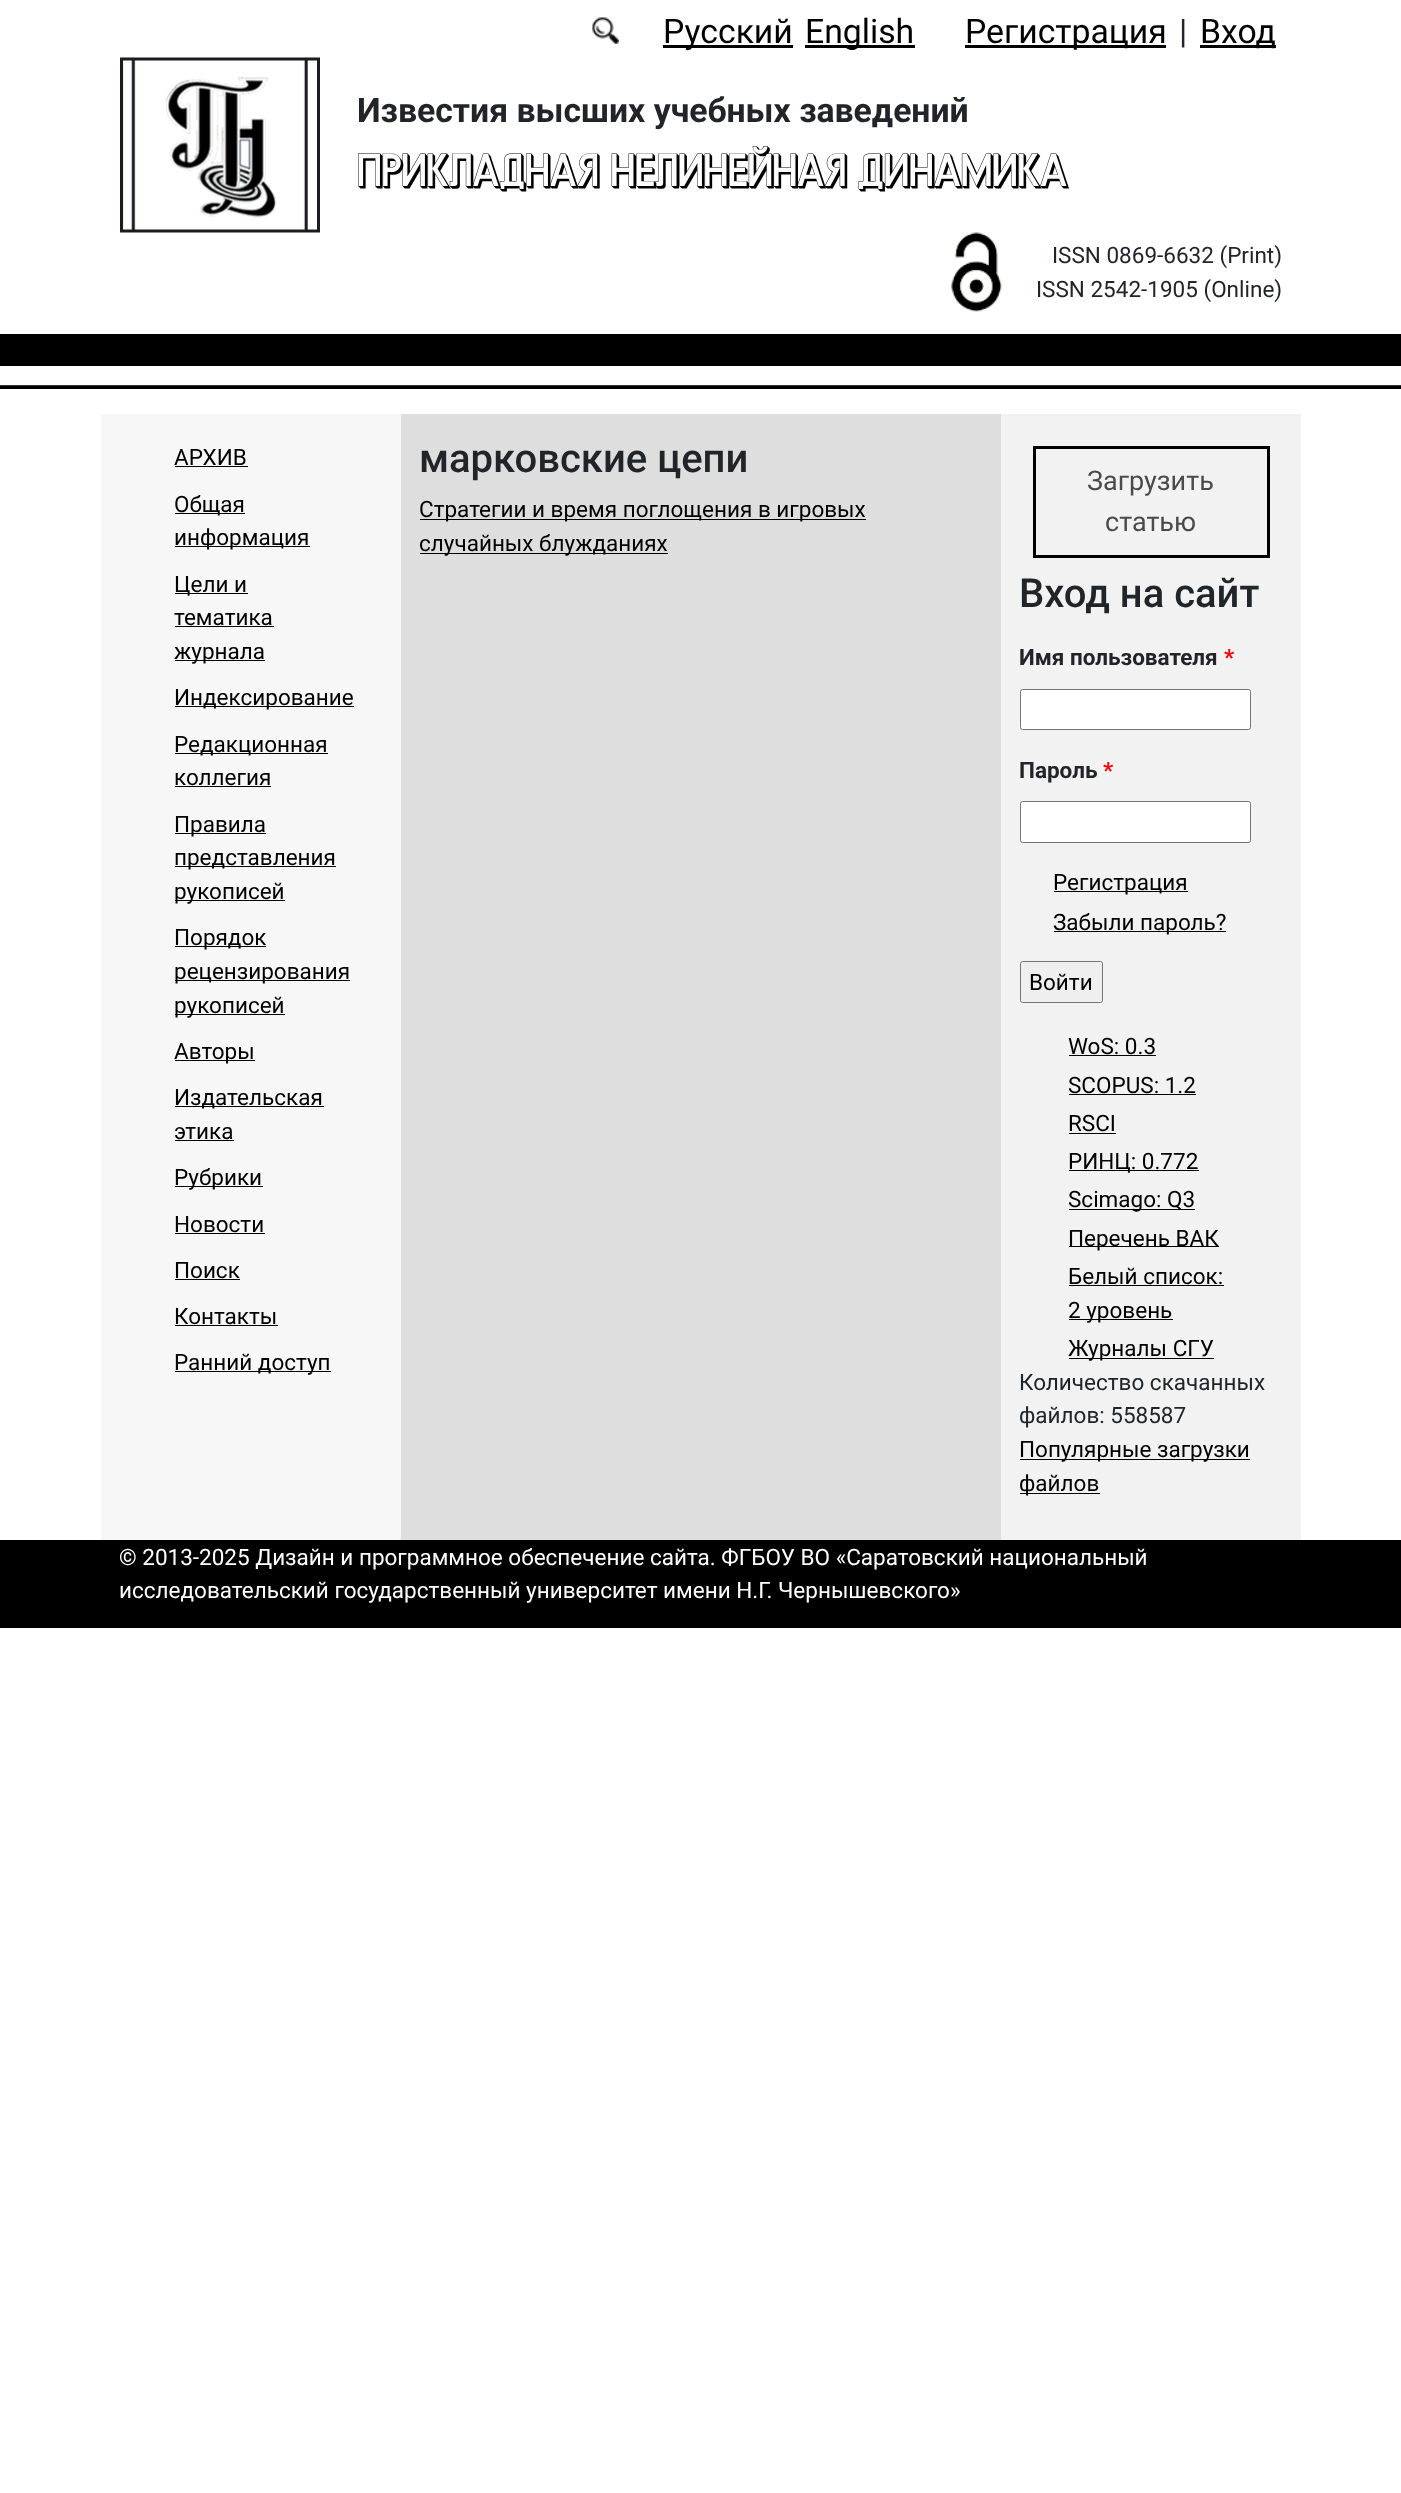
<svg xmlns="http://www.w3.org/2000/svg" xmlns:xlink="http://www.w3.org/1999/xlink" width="1401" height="2493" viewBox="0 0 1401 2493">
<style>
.cls-1{font:33.75px Roboto;fill:#000000}
.cls-2{font:33.75px Roboto;fill:#212529}
.cls-3{font:bold 33.75px Roboto;fill:#212529}
.cls-4{font:45px 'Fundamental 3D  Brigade';fill:#000000}
.cls-5{font:22.5px Roboto;fill:#212529}
.cls-6{font:22.5px Roboto;fill:#000000}
.cls-7{font:500 40px Roboto;fill:#212529}
.cls-8{font:27px Roboto;fill:#4a4a4a}
.cls-9{font:bold 22.5px Roboto;fill:#212529}
.cls-10{font:bold 22.5px Roboto;fill:#ff0000}
.cls-11{font:22.5px Roboto;fill:#ffffff}
</style>
<rect width="100%" height="100%" fill="#ffffff"/>
<image xlink:href="image0.png" x="592" y="17" width="27" height="27"/>
<rect fill="#000000" x="663" y="45" width="130" height="3"/>
<rect fill="#000000" x="805" y="45" width="110" height="3"/>
<rect fill="#000000" x="965" y="45" width="201" height="3"/>
<rect fill="#000000" x="1200" y="45" width="76" height="3"/>
<image xlink:href="image1.png" x="120" y="57" width="200" height="176"/>
<image xlink:href="image2.png" x="951" y="232" width="51" height="80"/>
<rect fill="#000000" x="0" y="334" width="1401" height="32"/>
<rect fill="#333333" x="0" y="385" width="1401" height="1"/>
<rect fill="#000000" x="0" y="386" width="1401" height="3"/>
<rect fill="#f7f7f7" x="101" y="414" width="300" height="1126"/>
<rect fill="#000000" x="175" y="466" width="73" height="1"/>
<rect fill="#000000" x="175" y="513" width="70" height="1"/>
<rect fill="#000000" x="175" y="546" width="135" height="1"/>
<rect fill="#000000" x="175" y="593" width="73" height="1"/>
<rect fill="#000000" x="175" y="626" width="99" height="1"/>
<rect fill="#000000" x="175" y="660" width="90" height="1"/>
<rect fill="#000000" x="175" y="706" width="179" height="1"/>
<rect fill="#000000" x="175" y="753" width="153" height="1"/>
<rect fill="#000000" x="175" y="786" width="96" height="1"/>
<rect fill="#000000" x="175" y="833" width="91" height="1"/>
<rect fill="#000000" x="175" y="866" width="161" height="1"/>
<rect fill="#000000" x="175" y="900" width="110" height="1"/>
<rect fill="#000000" x="175" y="946" width="91" height="1"/>
<rect fill="#000000" x="175" y="980" width="175" height="1"/>
<rect fill="#000000" x="175" y="1014" width="110" height="1"/>
<rect fill="#000000" x="175" y="1060" width="80" height="1"/>
<rect fill="#000000" x="175" y="1106" width="149" height="1"/>
<rect fill="#000000" x="175" y="1140" width="59" height="1"/>
<rect fill="#000000" x="175" y="1186" width="88" height="1"/>
<rect fill="#000000" x="175" y="1233" width="90" height="1"/>
<rect fill="#000000" x="175" y="1279" width="65" height="1"/>
<rect fill="#000000" x="175" y="1325" width="103" height="1"/>
<rect fill="#000000" x="175" y="1371" width="156" height="1"/>
<rect fill="#dedede" x="401" y="414" width="600" height="1126"/>
<rect fill="#000000" x="420" y="519" width="446" height="1"/>
<rect fill="#000000" x="420" y="553" width="248" height="1"/>
<rect fill="#f2f2f2" x="1001" y="414" width="300" height="1126"/>
<rect fill="none" stroke="#000000" stroke-width="3" x="1034.5" y="447.5" width="234" height="109"/>
<rect fill="#ffffff" stroke="#767676" x="1020.5" y="689.5" width="230" height="40" rx="2"/>
<rect fill="#ffffff" stroke="#767676" x="1020.5" y="801.5" width="230" height="41" rx="2"/>
<rect fill="#000000" x="1054" y="891" width="134" height="1"/>
<rect fill="#000000" x="1054" y="931" width="172" height="1"/>
<rect fill="#efefef" stroke="#767676" x="1020.5" y="961.5" width="82" height="41" rx="2"/>
<rect fill="#000000" x="1069" y="1055" width="87" height="1"/>
<rect fill="#000000" x="1069" y="1094" width="127" height="1"/>
<rect fill="#000000" x="1069" y="1133" width="47" height="1"/>
<rect fill="#000000" x="1069" y="1170" width="130" height="1"/>
<rect fill="#000000" x="1069" y="1209" width="126" height="1"/>
<rect fill="#000000" x="1069" y="1246" width="150" height="1"/>
<rect fill="#000000" x="1069" y="1285" width="155" height="1"/>
<rect fill="#000000" x="1069" y="1319" width="104" height="1"/>
<rect fill="#000000" x="1069" y="1358" width="145" height="1"/>
<rect fill="#000000" x="1020" y="1459" width="230" height="1"/>
<rect fill="#000000" x="1020" y="1493" width="80" height="1"/>
<rect fill="#000000" x="0" y="1540" width="1401" height="88"/>
<text class="cls-1" x="663" y="43">Русский</text>
<text class="cls-1" x="805" y="43">English</text>
<text class="cls-1" x="965" y="43">Регистрация</text>
<text class="cls-2" x="1179" y="43">|</text>
<text class="cls-1" x="1200" y="43">Вход</text>
<text class="cls-3" x="357" y="122">Известия высших учебных заведений</text>
<text class="cls-4" x="357" y="186">ПРИКЛАДНАЯ НЕЛИНЕЙНАЯ ДИНАМИКА</text>
<text class="cls-5" x="1052" y="263">ISSN 0869-6632 (Print)</text>
<text class="cls-5" x="1036" y="297">ISSN 2542-1905 (Online)</text>
<text class="cls-6" x="174" y="465">АРХИВ</text>
<text class="cls-6"><tspan x="174" y="512">Общая</tspan><tspan x="174" y="545">информация</tspan></text>
<text class="cls-6"><tspan x="174" y="592">Цели и</tspan><tspan x="174" y="625">тематика</tspan><tspan x="174" y="659">журнала</tspan></text>
<text class="cls-6" x="174" y="705">Индексирование</text>
<text class="cls-6"><tspan x="174" y="752">Редакционная</tspan><tspan x="174" y="785">коллегия</tspan></text>
<text class="cls-6"><tspan x="174" y="832">Правила</tspan><tspan x="174" y="865">представления</tspan><tspan x="174" y="899">рукописей</tspan></text>
<text class="cls-6"><tspan x="174" y="945">Порядок</tspan><tspan x="174" y="979">рецензирования</tspan><tspan x="174" y="1013">рукописей</tspan></text>
<text class="cls-6" x="174" y="1059">Авторы</text>
<text class="cls-6"><tspan x="174" y="1105">Издательская</tspan><tspan x="174" y="1139">этика</tspan></text>
<text class="cls-6" x="174" y="1185">Рубрики</text>
<text class="cls-6" x="174" y="1232">Новости</text>
<text class="cls-6" x="174" y="1278">Поиск</text>
<text class="cls-6" x="174" y="1324">Контакты</text>
<text class="cls-6" x="174" y="1370">Ранний доступ</text>
<text class="cls-7" x="419" y="472">марковские цепи</text>
<text class="cls-6"><tspan x="419" y="517">Стратегии и время поглощения в игровых</tspan><tspan x="419" y="551">случайных блужданиях</tspan></text>
<text class="cls-8" x="1087" y="490">Загрузить</text>
<text class="cls-8" x="1105" y="531">статью</text>
<text class="cls-7" x="1019" y="607">Вход на сайт</text>
<text class="cls-9" x="1019" y="665">Имя пользователя</text>
<text class="cls-10" x="1224" y="665">*</text>
<text class="cls-9" x="1019" y="778">Пароль</text>
<text class="cls-10" x="1103" y="778">*</text>
<text class="cls-6"><tspan x="1053" y="890">Регистрация</tspan><tspan x="1053" y="930">Забыли пароль?</tspan></text>
<text class="cls-6" x="1029" y="990">Войти</text>
<text class="cls-6"><tspan x="1068" y="1054">WoS: 0.3</tspan><tspan x="1068" y="1093">SCOPUS: 1.2</tspan><tspan x="1068" y="1131">RSCI</tspan><tspan x="1068" y="1169">РИНЦ: 0.772</tspan><tspan x="1068" y="1207">Scimago: Q3</tspan><tspan x="1068" y="1246">Перечень ВАК</tspan><tspan x="1068" y="1284">Белый список:</tspan><tspan x="1068" y="1318">2 уровень</tspan><tspan x="1068" y="1356">Журналы СГУ</tspan></text>
<text class="cls-5"><tspan x="1019" y="1390">Количество скачанных</tspan><tspan x="1019" y="1423">файлов: 558587</tspan></text>
<text class="cls-6"><tspan x="1019" y="1457">Популярные загрузки</tspan><tspan x="1019" y="1491">файлов</tspan></text>
<text class="cls-11"><tspan x="119" y="1565">© 2013-2025 Дизайн и программное обеспечение сайта. ФГБОУ ВО «Саратовский национальный</tspan><tspan x="119" y="1598">исследовательский государственный университет имени Н.Г. Чернышевского»</tspan></text>
</svg>
